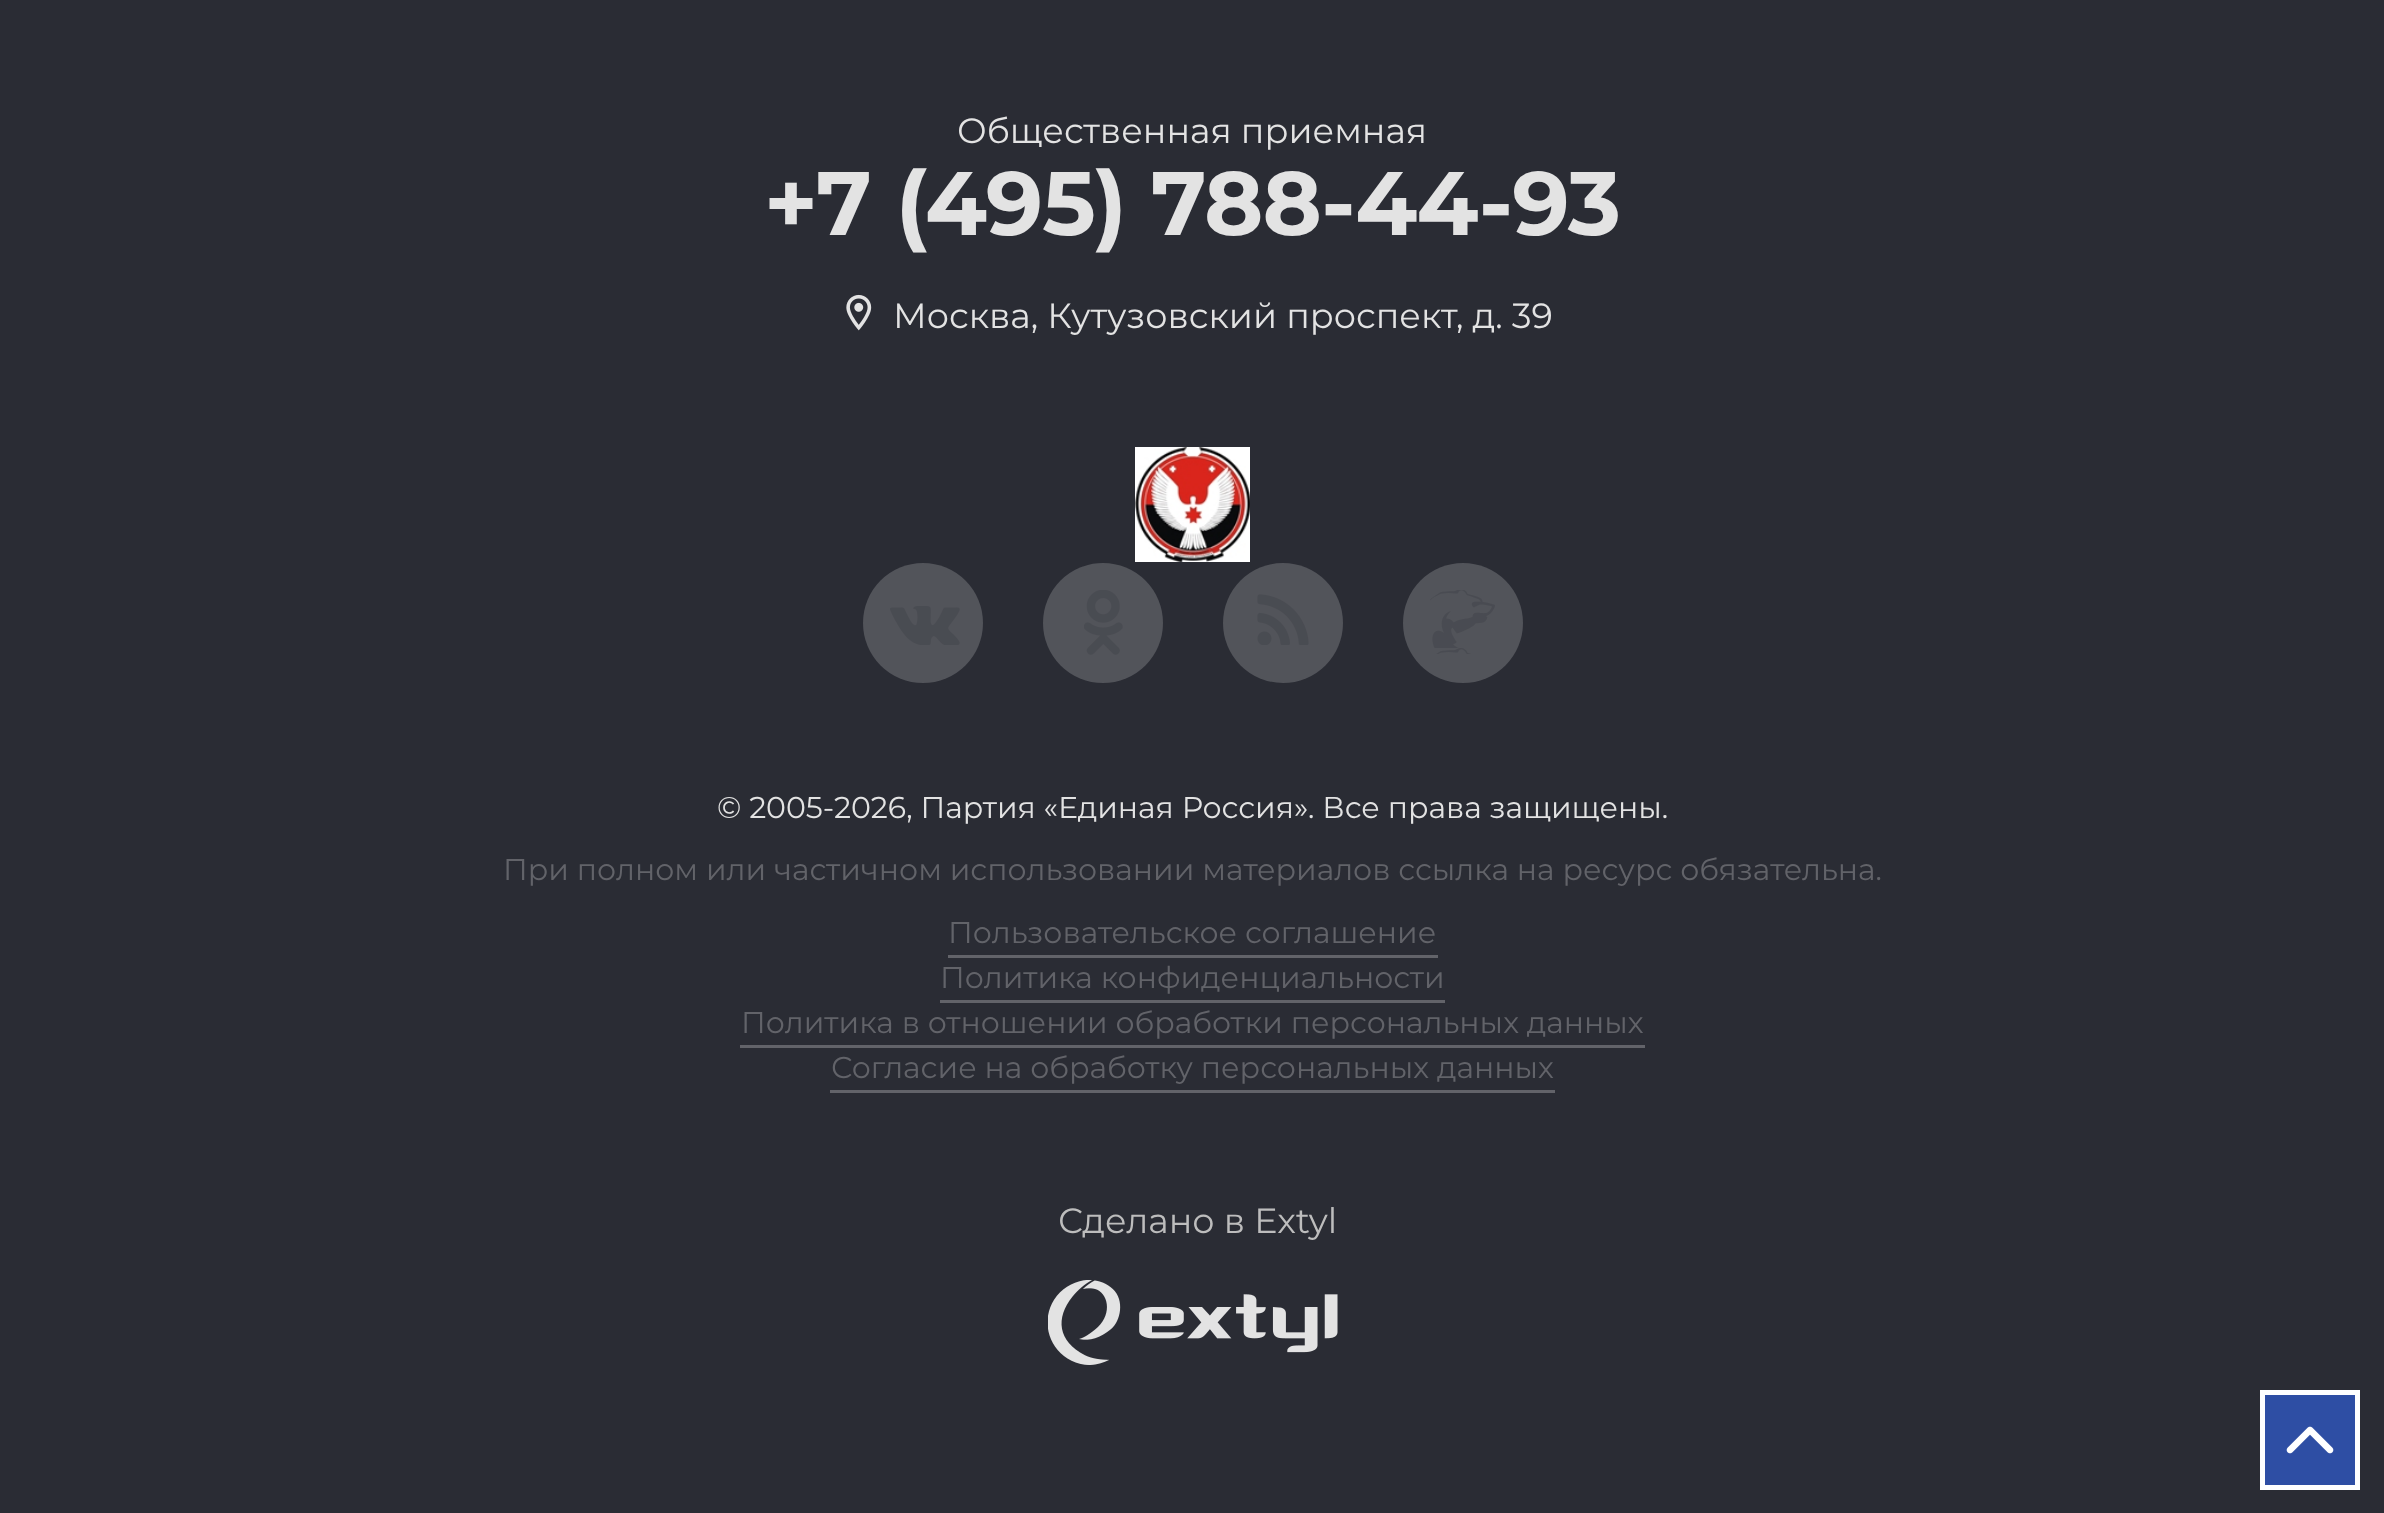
<svg xmlns="http://www.w3.org/2000/svg" xmlns:xlink="http://www.w3.org/1999/xlink" width="2384" height="1513" viewBox="0 0 2384 1513">
<style>
.cls-1{font:35px Montserrat;fill:#e3e3e3}
.cls-2{font:bold 90px Montserrat;letter-spacing:-0.9px;fill:#e3e3e3}
.cls-3{font:30px Montserrat;fill:#e3e3e3}
.cls-4{font:30px Montserrat;fill:#626369}
.cls-5{font:35px Montserrat;fill:#bdbdbd}
</style>
<rect width="100%" height="100%" fill="#2a2c34"/>
<image xlink:href="image0.png" x="846" y="294" width="26" height="37"/>
<image xlink:href="image1.png" x="1135" y="447" width="115" height="115"/>
<circle fill="#52545a" cx="923" cy="623" r="60"/>
<image xlink:href="image2.png" x="890" y="606" width="70" height="39"/>
<circle fill="#52545a" cx="1103" cy="623" r="60"/>
<image xlink:href="image3.png" x="1084" y="590" width="39" height="65"/>
<circle fill="#52545a" cx="1283" cy="623" r="60"/>
<image xlink:href="image4.png" x="1257" y="594" width="52" height="51"/>
<circle fill="#52545a" cx="1463" cy="623" r="60"/>
<image xlink:href="image5.png" x="1430" y="590" width="65" height="64"/>
<rect fill="#626369" x="948" y="955" width="490" height="3"/>
<rect fill="#626369" x="940" y="1000" width="505" height="3"/>
<rect fill="#626369" x="740" y="1045" width="905" height="3"/>
<rect fill="#626369" x="830" y="1090" width="725" height="3"/>
<image xlink:href="image6.png" x="1048" y="1280" width="290" height="85"/>
<rect fill="#2e4ea4" stroke="#ffffff" stroke-width="5" x="2262.5" y="1392.5" width="95" height="95"/>
<image xlink:href="image7.png" x="2286" y="1426" width="48" height="28"/>
<text class="cls-1" x="957" y="143">Общественная приемная</text>
<text class="cls-2" x="764" y="235">+7 (495) 788-44-93</text>
<text class="cls-1" x="893" y="328">Москва, Кутузовский проспект, д. 39</text>
<text class="cls-3" x="717" y="818">© 2005-2026, Партия «Единая Россия». Все права защищены.</text>
<text class="cls-4" x="503" y="880">При полном или частичном использовании материалов ссылка на ресурс обязательна.</text>
<text class="cls-4" x="948" y="943">Пользовательское соглашение</text>
<text class="cls-4" x="940" y="988">Политика конфиденциальности</text>
<text class="cls-4" x="741" y="1033">Политика в отношении обработки персональных данных</text>
<text class="cls-4" x="831" y="1078">Согласие на обработку персональных данных</text>
<text class="cls-5" x="1058" y="1233">Сделано в Extyl</text>
</svg>
